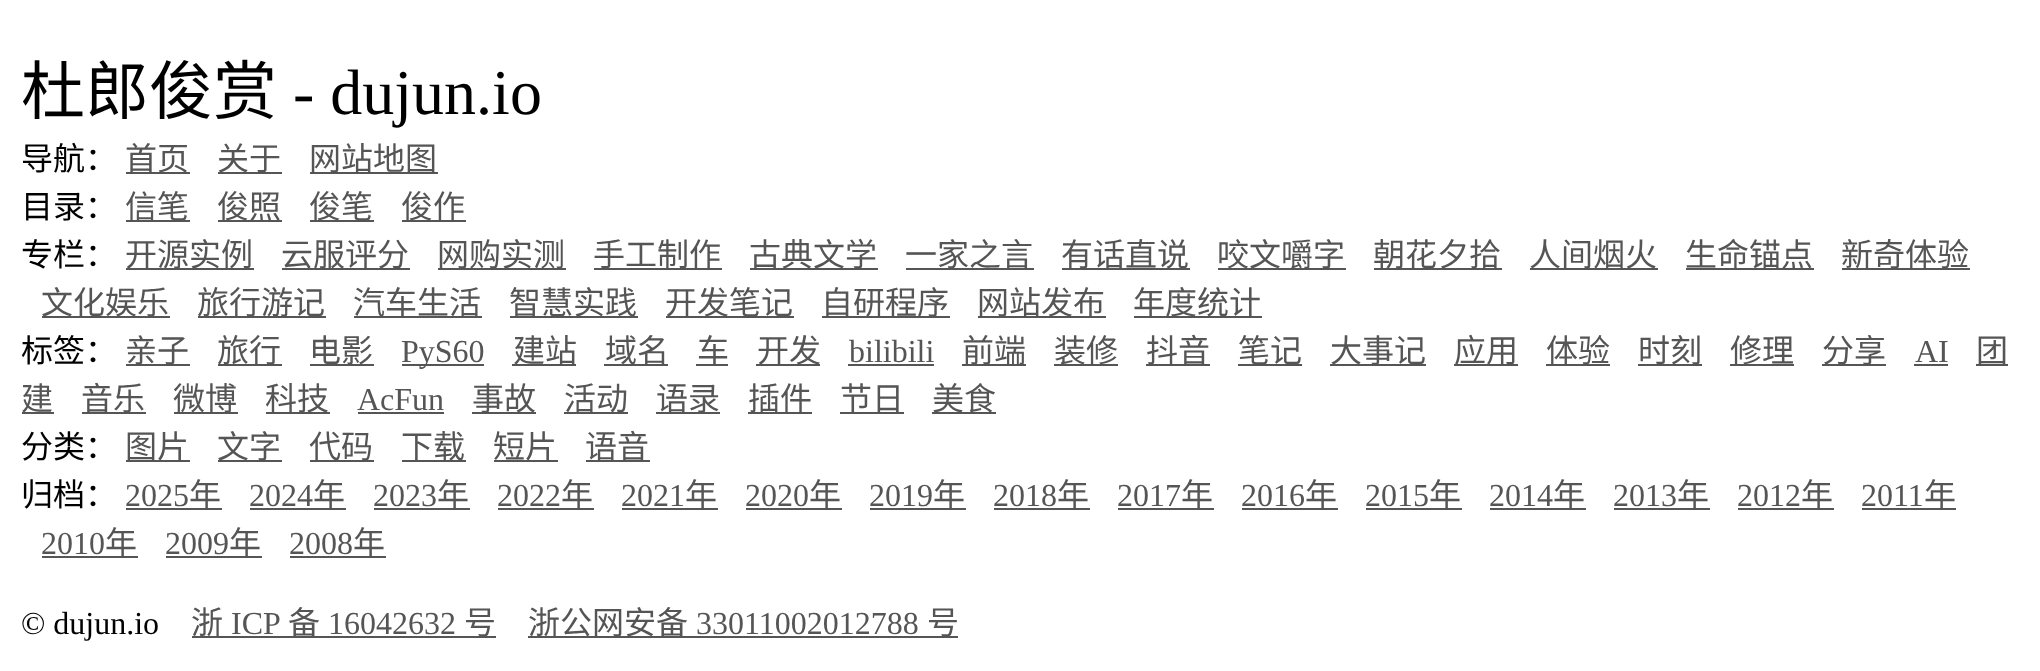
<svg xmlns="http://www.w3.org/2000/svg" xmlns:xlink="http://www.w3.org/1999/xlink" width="2040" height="671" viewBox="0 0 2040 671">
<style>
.cls-1{font:64px Noto Sans CJK SC;fill:#000000}
.cls-2{font:64px Liberation Serif;fill:#000000}
.cls-3{font:32px Noto Sans CJK SC;fill:#000000}
.cls-4{font:32px Noto Sans CJK SC;fill:#555555}
.cls-5{font:32px Liberation Serif;fill:#555555}
.cls-6{font:32px Liberation Serif;fill:#000000}
</style>
<rect width="100%" height="100%" fill="#ffffff"/>
<rect fill="#555555" x="126" y="172" width="64" height="2"/>
<rect fill="#555555" x="218" y="172" width="64" height="2"/>
<rect fill="#555555" x="310" y="172" width="128" height="2"/>
<rect fill="#555555" x="126" y="220" width="64" height="2"/>
<rect fill="#555555" x="218" y="220" width="64" height="2"/>
<rect fill="#555555" x="310" y="220" width="64" height="2"/>
<rect fill="#555555" x="402" y="220" width="64" height="2"/>
<rect fill="#555555" x="126" y="268" width="128" height="2"/>
<rect fill="#555555" x="282" y="268" width="128" height="2"/>
<rect fill="#555555" x="438" y="268" width="128" height="2"/>
<rect fill="#555555" x="594" y="268" width="128" height="2"/>
<rect fill="#555555" x="750" y="268" width="128" height="2"/>
<rect fill="#555555" x="906" y="268" width="128" height="2"/>
<rect fill="#555555" x="1062" y="268" width="128" height="2"/>
<rect fill="#555555" x="1218" y="268" width="128" height="2"/>
<rect fill="#555555" x="1374" y="268" width="128" height="2"/>
<rect fill="#555555" x="1530" y="268" width="128" height="2"/>
<rect fill="#555555" x="1686" y="268" width="128" height="2"/>
<rect fill="#555555" x="1842" y="268" width="128" height="2"/>
<rect fill="#555555" x="42" y="316" width="128" height="2"/>
<rect fill="#555555" x="198" y="316" width="128" height="2"/>
<rect fill="#555555" x="354" y="316" width="128" height="2"/>
<rect fill="#555555" x="510" y="316" width="128" height="2"/>
<rect fill="#555555" x="666" y="316" width="128" height="2"/>
<rect fill="#555555" x="822" y="316" width="128" height="2"/>
<rect fill="#555555" x="978" y="316" width="128" height="2"/>
<rect fill="#555555" x="1134" y="316" width="128" height="2"/>
<rect fill="#555555" x="126" y="364" width="64" height="2"/>
<rect fill="#555555" x="218" y="364" width="64" height="2"/>
<rect fill="#555555" x="310" y="364" width="64" height="2"/>
<rect fill="#555555" x="402" y="364" width="82" height="2"/>
<rect fill="#555555" x="512" y="364" width="64" height="2"/>
<rect fill="#555555" x="604" y="364" width="64" height="2"/>
<rect fill="#555555" x="696" y="364" width="32" height="2"/>
<rect fill="#555555" x="756" y="364" width="64" height="2"/>
<rect fill="#555555" x="848" y="364" width="86" height="2"/>
<rect fill="#555555" x="962" y="364" width="64" height="2"/>
<rect fill="#555555" x="1054" y="364" width="64" height="2"/>
<rect fill="#555555" x="1146" y="364" width="64" height="2"/>
<rect fill="#555555" x="1238" y="364" width="64" height="2"/>
<rect fill="#555555" x="1330" y="364" width="96" height="2"/>
<rect fill="#555555" x="1454" y="364" width="64" height="2"/>
<rect fill="#555555" x="1546" y="364" width="64" height="2"/>
<rect fill="#555555" x="1638" y="364" width="64" height="2"/>
<rect fill="#555555" x="1730" y="364" width="64" height="2"/>
<rect fill="#555555" x="1822" y="364" width="64" height="2"/>
<rect fill="#555555" x="1914" y="364" width="34" height="2"/>
<rect fill="#555555" x="1976" y="364" width="32" height="2"/>
<rect fill="#555555" x="22" y="412" width="32" height="2"/>
<rect fill="#555555" x="82" y="412" width="64" height="2"/>
<rect fill="#555555" x="174" y="412" width="64" height="2"/>
<rect fill="#555555" x="266" y="412" width="64" height="2"/>
<rect fill="#555555" x="358" y="412" width="86" height="2"/>
<rect fill="#555555" x="472" y="412" width="64" height="2"/>
<rect fill="#555555" x="564" y="412" width="64" height="2"/>
<rect fill="#555555" x="656" y="412" width="64" height="2"/>
<rect fill="#555555" x="748" y="412" width="64" height="2"/>
<rect fill="#555555" x="840" y="412" width="64" height="2"/>
<rect fill="#555555" x="932" y="412" width="64" height="2"/>
<rect fill="#555555" x="126" y="460" width="64" height="2"/>
<rect fill="#555555" x="218" y="460" width="64" height="2"/>
<rect fill="#555555" x="310" y="460" width="64" height="2"/>
<rect fill="#555555" x="402" y="460" width="64" height="2"/>
<rect fill="#555555" x="494" y="460" width="64" height="2"/>
<rect fill="#555555" x="586" y="460" width="64" height="2"/>
<rect fill="#555555" x="126" y="508" width="96" height="2"/>
<rect fill="#555555" x="250" y="508" width="96" height="2"/>
<rect fill="#555555" x="374" y="508" width="96" height="2"/>
<rect fill="#555555" x="498" y="508" width="96" height="2"/>
<rect fill="#555555" x="622" y="508" width="96" height="2"/>
<rect fill="#555555" x="746" y="508" width="96" height="2"/>
<rect fill="#555555" x="870" y="508" width="96" height="2"/>
<rect fill="#555555" x="994" y="508" width="96" height="2"/>
<rect fill="#555555" x="1118" y="508" width="96" height="2"/>
<rect fill="#555555" x="1242" y="508" width="96" height="2"/>
<rect fill="#555555" x="1366" y="508" width="96" height="2"/>
<rect fill="#555555" x="1490" y="508" width="96" height="2"/>
<rect fill="#555555" x="1614" y="508" width="96" height="2"/>
<rect fill="#555555" x="1738" y="508" width="96" height="2"/>
<rect fill="#555555" x="1862" y="508" width="94" height="2"/>
<rect fill="#555555" x="42" y="556" width="96" height="2"/>
<rect fill="#555555" x="166" y="556" width="96" height="2"/>
<rect fill="#555555" x="290" y="556" width="96" height="2"/>
<rect fill="#555555" x="192" y="636" width="304" height="2"/>
<rect fill="#555555" x="528" y="636" width="430" height="2"/>
<text class="cls-1" x="21" y="114">杜郎俊赏</text>
<text class="cls-2" x="293" y="114">- dujun.io</text>
<text class="cls-3" x="21" y="170">导航：</text>
<text class="cls-4" x="125" y="170">首页</text>
<text class="cls-4" x="217" y="170">关于</text>
<text class="cls-4" x="309" y="170">网站地图</text>
<text class="cls-3" x="21" y="218">目录：</text>
<text class="cls-4" x="125" y="218">信笔</text>
<text class="cls-4" x="217" y="218">俊照</text>
<text class="cls-4" x="309" y="218">俊笔</text>
<text class="cls-4" x="401" y="218">俊作</text>
<text class="cls-3" x="21" y="266">专栏：</text>
<text class="cls-4" x="125" y="266">开源实例</text>
<text class="cls-4" x="281" y="266">云服评分</text>
<text class="cls-4" x="437" y="266">网购实测</text>
<text class="cls-4" x="593" y="266">手工制作</text>
<text class="cls-4" x="749" y="266">古典文学</text>
<text class="cls-4" x="905" y="266">一家之言</text>
<text class="cls-4" x="1061" y="266">有话直说</text>
<text class="cls-4" x="1217" y="266">咬文嚼字</text>
<text class="cls-4" x="1373" y="266">朝花夕拾</text>
<text class="cls-4" x="1529" y="266">人间烟火</text>
<text class="cls-4" x="1685" y="266">生命锚点</text>
<text class="cls-4" x="1841" y="266">新奇体验</text>
<text class="cls-4" x="41" y="314">文化娱乐</text>
<text class="cls-4" x="197" y="314">旅行游记</text>
<text class="cls-4" x="353" y="314">汽车生活</text>
<text class="cls-4" x="509" y="314">智慧实践</text>
<text class="cls-4" x="665" y="314">开发笔记</text>
<text class="cls-4" x="821" y="314">自研程序</text>
<text class="cls-4" x="977" y="314">网站发布</text>
<text class="cls-4" x="1133" y="314">年度统计</text>
<text class="cls-3" x="21" y="362">标签：</text>
<text class="cls-4" x="125" y="362">亲子</text>
<text class="cls-4" x="217" y="362">旅行</text>
<text class="cls-4" x="309" y="362">电影</text>
<text class="cls-5" x="401" y="362">PyS60</text>
<text class="cls-4" x="513" y="362">建站</text>
<text class="cls-4" x="605" y="362">域名</text>
<text class="cls-4" x="697" y="362">车</text>
<text class="cls-4" x="757" y="362">开发</text>
<text class="cls-5" x="849" y="362">bilibili</text>
<text class="cls-4" x="962" y="362">前端</text>
<text class="cls-4" x="1054" y="362">装修</text>
<text class="cls-4" x="1146" y="362">抖音</text>
<text class="cls-4" x="1238" y="362">笔记</text>
<text class="cls-4" x="1330" y="362">大事记</text>
<text class="cls-4" x="1454" y="362">应用</text>
<text class="cls-4" x="1546" y="362">体验</text>
<text class="cls-4" x="1638" y="362">时刻</text>
<text class="cls-4" x="1730" y="362">修理</text>
<text class="cls-4" x="1822" y="362">分享</text>
<text class="cls-5" x="1915" y="362">AI</text>
<text class="cls-4" x="1976" y="362">团</text>
<text class="cls-4" x="21" y="410">建</text>
<text class="cls-4" x="81" y="410">音乐</text>
<text class="cls-4" x="173" y="410">微博</text>
<text class="cls-4" x="265" y="410">科技</text>
<text class="cls-5" x="357" y="410">AcFun</text>
<text class="cls-4" x="472" y="410">事故</text>
<text class="cls-4" x="564" y="410">活动</text>
<text class="cls-4" x="656" y="410">语录</text>
<text class="cls-4" x="748" y="410">插件</text>
<text class="cls-4" x="840" y="410">节日</text>
<text class="cls-4" x="932" y="410">美食</text>
<text class="cls-3" x="21" y="458">分类：</text>
<text class="cls-4" x="125" y="458">图片</text>
<text class="cls-4" x="217" y="458">文字</text>
<text class="cls-4" x="309" y="458">代码</text>
<text class="cls-4" x="401" y="458">下载</text>
<text class="cls-4" x="493" y="458">短片</text>
<text class="cls-4" x="585" y="458">语音</text>
<text class="cls-3" x="21" y="506">归档：</text>
<text class="cls-5" x="125" y="506">2025</text>
<text class="cls-4" x="189" y="506">年</text>
<text class="cls-5" x="249" y="506">2024</text>
<text class="cls-4" x="313" y="506">年</text>
<text class="cls-5" x="373" y="506">2023</text>
<text class="cls-4" x="437" y="506">年</text>
<text class="cls-5" x="497" y="506">2022</text>
<text class="cls-4" x="561" y="506">年</text>
<text class="cls-5" x="621" y="506">2021</text>
<text class="cls-4" x="685" y="506">年</text>
<text class="cls-5" x="745" y="506">2020</text>
<text class="cls-4" x="809" y="506">年</text>
<text class="cls-5" x="869" y="506">2019</text>
<text class="cls-4" x="933" y="506">年</text>
<text class="cls-5" x="993" y="506">2018</text>
<text class="cls-4" x="1057" y="506">年</text>
<text class="cls-5" x="1117" y="506">2017</text>
<text class="cls-4" x="1181" y="506">年</text>
<text class="cls-5" x="1241" y="506">2016</text>
<text class="cls-4" x="1305" y="506">年</text>
<text class="cls-5" x="1365" y="506">2015</text>
<text class="cls-4" x="1429" y="506">年</text>
<text class="cls-5" x="1489" y="506">2014</text>
<text class="cls-4" x="1553" y="506">年</text>
<text class="cls-5" x="1613" y="506">2013</text>
<text class="cls-4" x="1677" y="506">年</text>
<text class="cls-5" x="1737" y="506">2012</text>
<text class="cls-4" x="1801" y="506">年</text>
<text class="cls-5" x="1861" y="506">2011</text>
<text class="cls-4" x="1924" y="506">年</text>
<text class="cls-5" x="41" y="554">2010</text>
<text class="cls-4" x="105" y="554">年</text>
<text class="cls-5" x="165" y="554">2009</text>
<text class="cls-4" x="229" y="554">年</text>
<text class="cls-5" x="289" y="554">2008</text>
<text class="cls-4" x="353" y="554">年</text>
<text class="cls-6" x="21" y="634">© dujun.io</text>
<text class="cls-4" x="191" y="634">浙</text>
<text class="cls-5" x="231" y="634">ICP</text>
<text class="cls-4" x="288" y="634">备</text>
<text class="cls-5" x="328" y="634">16042632</text>
<text class="cls-4" x="464" y="634">号</text>
<text class="cls-4" x="528" y="634">浙公网安备</text>
<text class="cls-5" x="696" y="634">33011002012788</text>
<text class="cls-4" x="927" y="634">号</text>
</svg>
